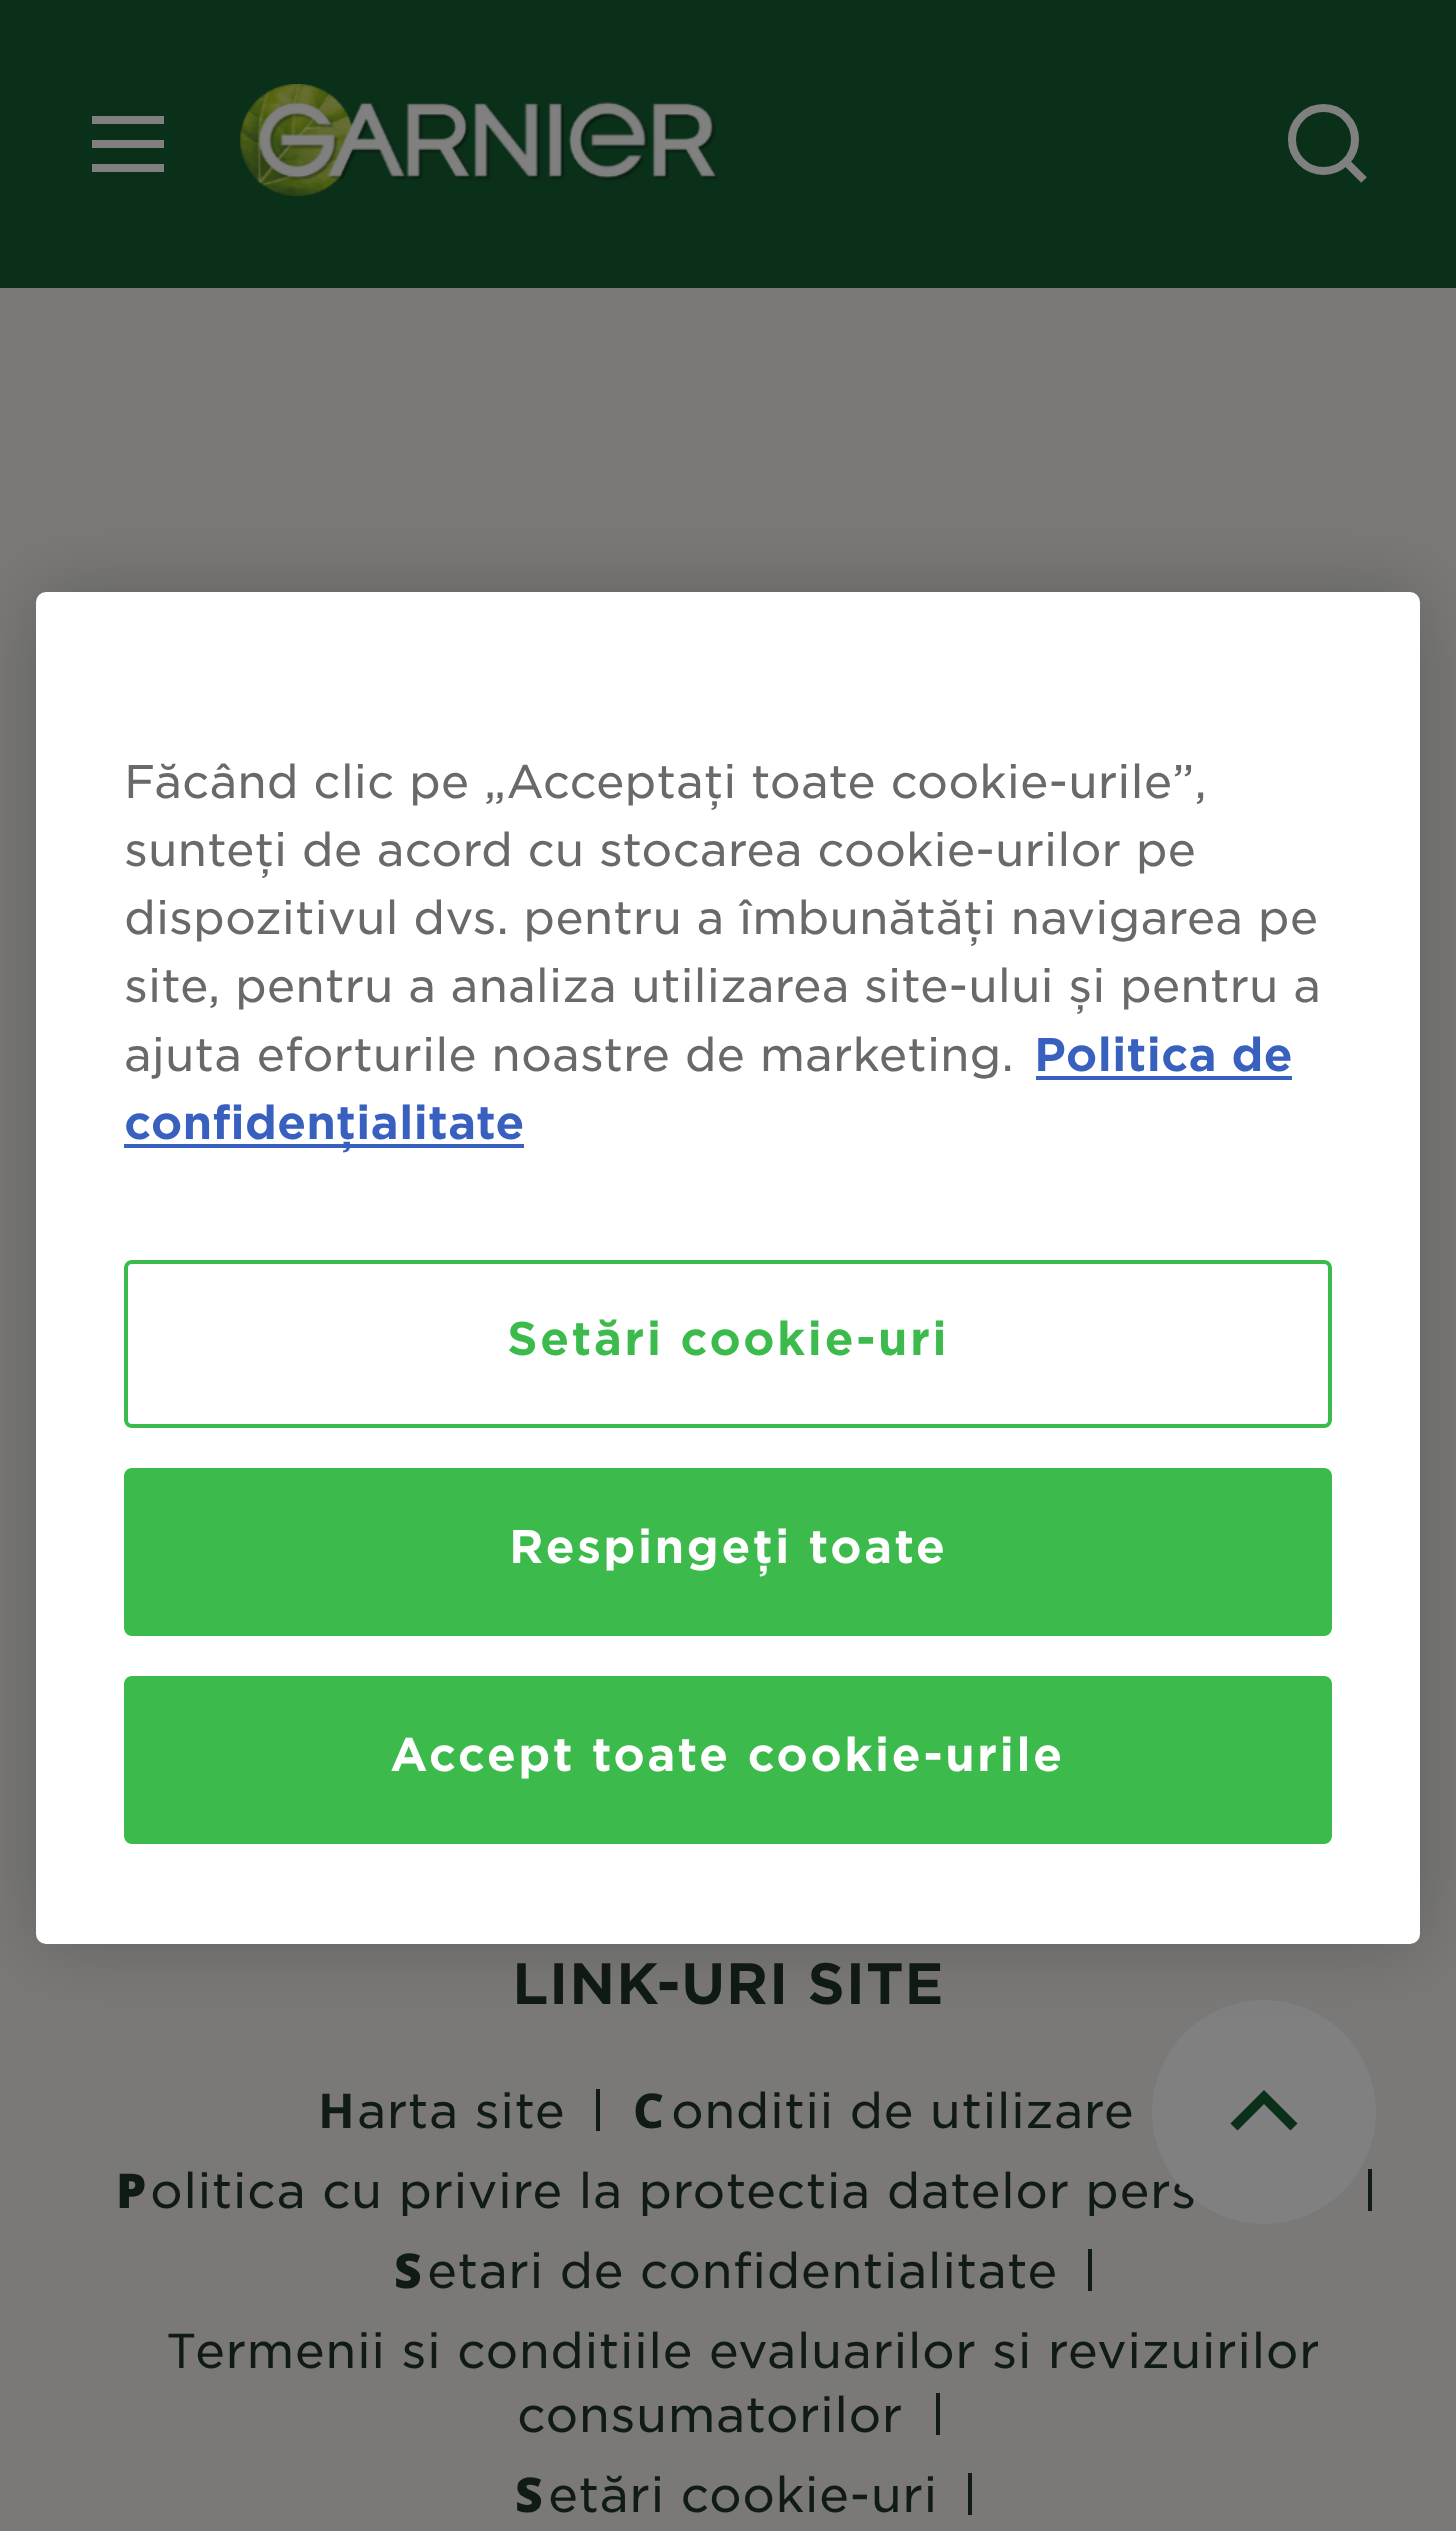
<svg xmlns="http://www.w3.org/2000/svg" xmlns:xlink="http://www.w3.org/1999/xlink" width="1456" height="2531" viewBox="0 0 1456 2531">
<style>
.cls-1{font:56px 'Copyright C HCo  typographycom';letter-spacing:0.4px;fill:#111b16}
.cls-2{font:bold 48px Noto Sans;letter-spacing:0.4px;fill:#111b16}
.cls-3{font:300 48px 'Copyright C HCo  typographycom';letter-spacing:0.4px;fill:#111b16}
.cls-4{font:800 48px Noto Sans;letter-spacing:0.4px;fill:#111b16}
.cls-5{font:900 48px Noto Sans;letter-spacing:0.4px;fill:#111b16}
.cls-6{font:48px Noto Sans;letter-spacing:0.4px;fill:#111b16}
.cls-7{font:45.5px 'Copyright C HCo  typographycom';letter-spacing:2.25px;fill:#3cba4c}
.cls-8{font:45.5px 'Copyright C HCo  typographycom';letter-spacing:2.25px;fill:#ffffff}
.cls-9{font:45.5px 'Copyright C HCo  typographycom';fill:#3860be}
.cls-10{font:300 45.5px 'Copyright C HCo  typographycom';fill:#696969}
</style>
<rect width="100%" height="100%" fill="#7a7978"/>
<rect fill="#0b3019" x="0" y="0" width="1456" height="288"/>
<rect fill="#808080" x="92" y="116" width="72" height="8"/>
<rect fill="#808080" x="92" y="140" width="72" height="8"/>
<rect fill="#808080" x="92" y="164" width="72" height="8"/>
<image xlink:href="image0.png" x="240" y="84" width="479" height="113"/>
<circle fill="none" stroke="#808080" stroke-width="8" cx="1323.5" cy="139.5" r="31.5"/>
<path fill="none" stroke="#808080" stroke-width="8" stroke-linejoin="round" d="M1346 162L1364 180"/>
<rect fill="#111b16" x="596" y="2089" width="4" height="42"/>
<rect fill="#111b16" x="1368" y="2169" width="4" height="42"/>
<rect fill="#111b16" x="1088" y="2249" width="4" height="42"/>
<rect fill="#111b16" x="936" y="2393" width="4" height="42"/>
<rect fill="#111b16" x="968" y="2473" width="4" height="42"/>
<text class="cls-1" x="512" y="2004">LINK-URI SITE</text>
<text class="cls-2" x="318" y="2128">H</text>
<text class="cls-3" x="357" y="2128">arta site</text>
<text class="cls-4" x="633" y="2128">C</text>
<text class="cls-3" x="671" y="2128">onditii de utilizare</text>
<text class="cls-5" x="116" y="2208">P</text>
<text class="cls-3" x="150" y="2208">olitica cu privire la protectia datelor pers</text>
<text class="cls-5" x="394" y="2288">S</text>
<text class="cls-3" x="427" y="2288">etari de confidentialitate</text>
<text class="cls-6" x="168" y="2368">T</text>
<text class="cls-3" x="195" y="2368">ermenii si conditiile evaluarilor si revizuirilor</text>
<text class="cls-3" x="517" y="2432">consumatorilor</text>
<text class="cls-5" x="515" y="2512">S</text>
<text class="cls-3" x="548" y="2512">etări cookie-uri</text>
<circle fill="#808080" cx="1264" cy="2112" r="112"/>
<rect fill="#000000" fill-opacity="0.2" filter="blur(36px)" x="36" y="592" width="1384" height="1352" rx="10"/>
<rect fill="#ffffff" x="36" y="592" width="1384" height="1352" rx="10"/>
<rect fill="none" stroke="#3cba4c" stroke-width="4" x="126" y="1262" width="1204" height="164" rx="6"/>
<text class="cls-7" x="507" y="1355">Setări cookie-uri</text>
<rect fill="#3cba4c" stroke="#3cba4c" stroke-width="4" x="126" y="1678" width="1204" height="164" rx="6"/>
<text class="cls-8" x="390" y="1771">Accept toate cookie-urile</text>
<rect fill="#3cba4c" stroke="#3cba4c" stroke-width="4" x="126" y="1470" width="1204" height="164" rx="6"/>
<text class="cls-8" x="509" y="1563">Respingeți toate</text>
<rect fill="#3860be" x="124" y="1144" width="400" height="4"/>
<text class="cls-9" x="124" y="1139">confidențialitate</text>
<text class="cls-9" x="1034" y="1071">Politica de</text>
<rect fill="#3860be" x="1036" y="1076" width="256" height="4"/>
<text class="cls-10" x="124" y="1071">ajuta eforturile noastre de marketing.</text>
<text class="cls-10" x="124" y="1002">site, pentru a analiza utilizarea site-ului și pentru a</text>
<text class="cls-10" x="124" y="934">dispozitivul dvs. pentru a îmbunătăți navigarea pe</text>
<text class="cls-10" x="124" y="866">sunteți de acord cu stocarea cookie-urilor pe</text>
<text class="cls-10" x="124" y="798">Făcând clic pe „Acceptați toate cookie-urile”,</text>
<path fill="none" stroke="#0b3019" stroke-width="10" d="M1294 2127L1264 2097L1234 2127"/>
</svg>
